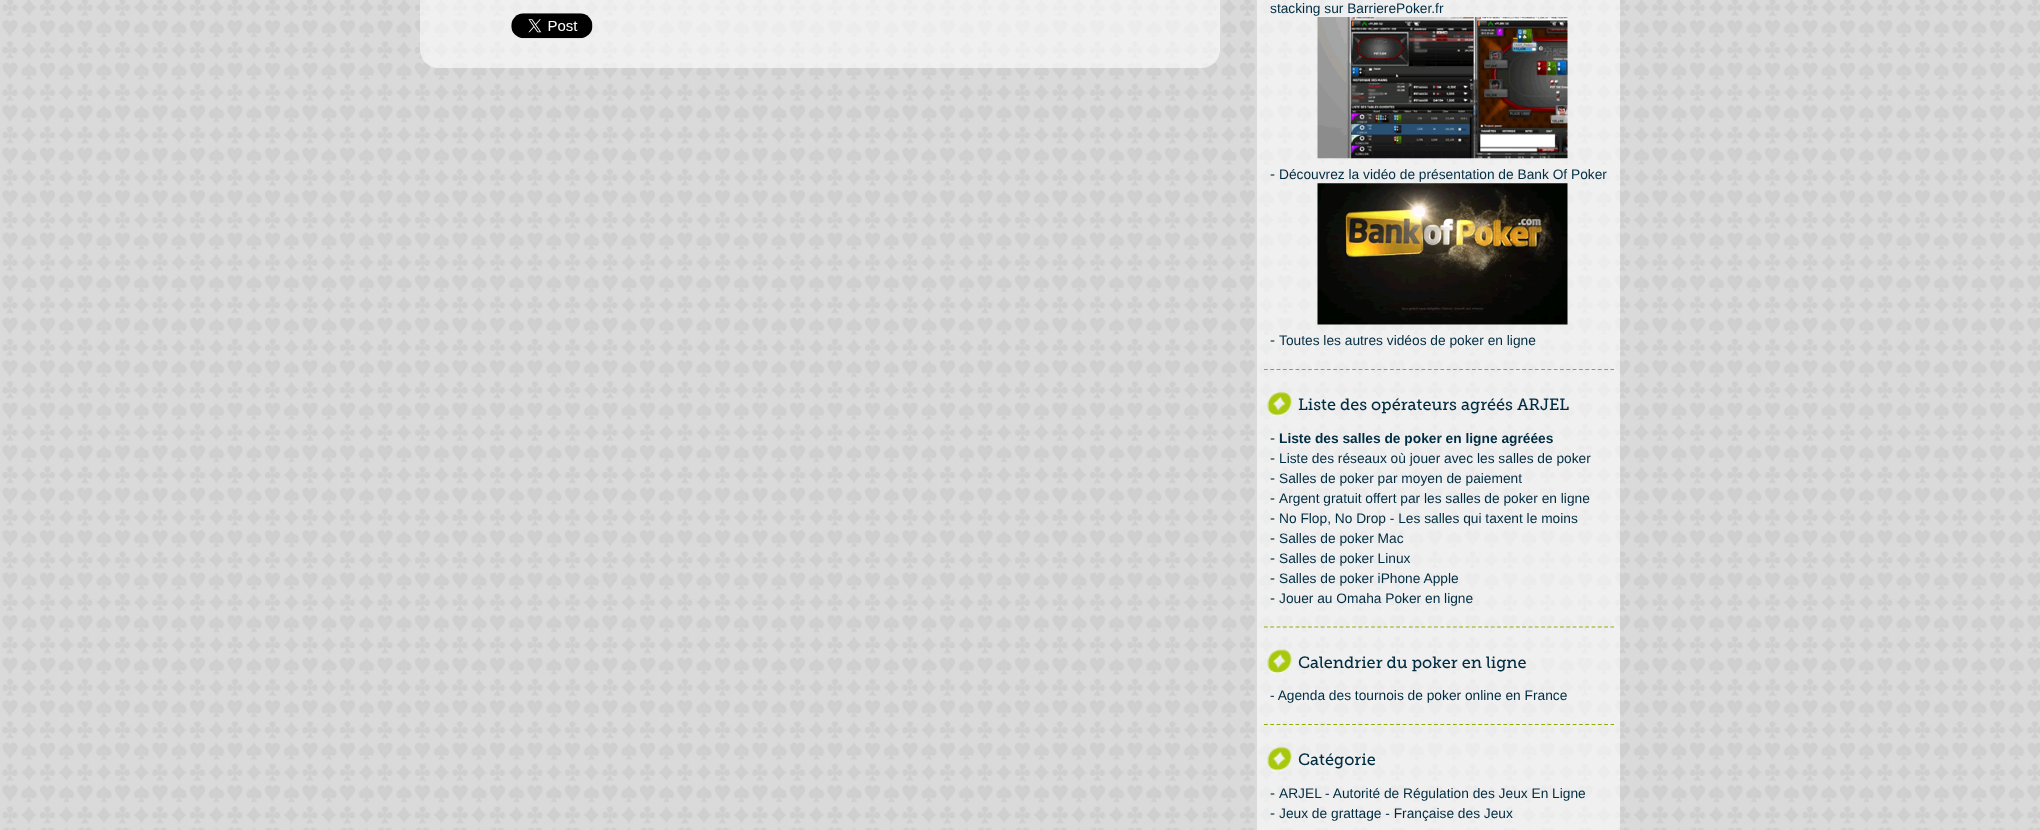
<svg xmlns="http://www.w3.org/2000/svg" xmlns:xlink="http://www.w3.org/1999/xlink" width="2040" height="830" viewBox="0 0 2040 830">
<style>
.cls-1{font:13.75px Liberation Sans;fill:#002c41}
.cls-2{font:15px Liberation Sans;fill:#002c41}
.cls-3{font:16.25px Museo Slab;fill:#002c41}
.cls-4{font:bold 13.75px Liberation Sans;fill:#002c41}
</style>
<rect width="100%" height="100%" fill="#ffffff"/>
<image xlink:href="image0.png" x="0" y="0" width="2040" height="830"/>
<image xlink:href="image1.png" x="420" y="0" width="800" height="68"/>
<image xlink:href="image2.png" x="511" y="13" width="82" height="26"/>
<rect fill="#ffffff" fill-opacity="0.6" x="1257" y="0" width="363" height="830"/>
<path fill="none" stroke="#8fab0a" stroke-width="1.2" stroke-dasharray="3.75 2.55" d="M1264 369.5H1614"/>
<image xlink:href="image3.png" x="1317" y="17" width="251" height="142"/>
<image xlink:href="image4.png" x="1317" y="183" width="251" height="142"/>
<path fill="none" stroke="#8fab0a" stroke-width="1.2" stroke-dasharray="3.75 2.55" d="M1264 627H1614"/>
<image xlink:href="image5.png" x="1267" y="391" width="25" height="25"/>
<path fill="none" stroke="#8fab0a" stroke-width="1.2" stroke-dasharray="3.75 2.55" d="M1264 724.5H1614"/>
<image xlink:href="image6.png" x="1267" y="649" width="25" height="25"/>
<image xlink:href="image7.png" x="1267" y="746" width="25" height="26"/>
<text class="cls-1" x="1270" y="13">stacking sur BarrierePoker.fr</text>
<text class="cls-2" x="1270" y="179">-</text>
<text class="cls-1" x="1279" y="179">Découvrez la vidéo de présentation de Bank Of Poker</text>
<text class="cls-2" x="1270" y="345">-</text>
<text class="cls-1" x="1279" y="345">Toutes les autres vidéos de poker en ligne</text>
<text class="cls-3" x="1298" y="410">Liste des opérateurs agréés ARJEL</text>
<text class="cls-2" x="1270" y="443">-</text>
<text class="cls-4" x="1279" y="443">Liste des salles de poker en ligne agréées</text>
<text class="cls-2" x="1270" y="463">-</text>
<text class="cls-1" x="1279" y="463">Liste des réseaux où jouer avec les salles de poker</text>
<text class="cls-2" x="1270" y="483">-</text>
<text class="cls-1" x="1279" y="483">Salles de poker par moyen de paiement</text>
<text class="cls-2" x="1270" y="503">-</text>
<text class="cls-1" x="1279" y="503">Argent gratuit offert par les salles de poker en ligne</text>
<text class="cls-2" x="1270" y="523">-</text>
<text class="cls-1" x="1279" y="523">No Flop, No Drop - Les salles qui taxent le moins</text>
<text class="cls-2" x="1270" y="543">-</text>
<text class="cls-1" x="1279" y="543">Salles de poker Mac</text>
<text class="cls-2" x="1270" y="563">-</text>
<text class="cls-1" x="1279" y="563">Salles de poker Linux</text>
<text class="cls-2" x="1270" y="583">-</text>
<text class="cls-1" x="1279" y="583">Salles de poker iPhone Apple</text>
<text class="cls-2" x="1270" y="603">-</text>
<text class="cls-1" x="1279" y="603">Jouer au Omaha Poker en ligne</text>
<text class="cls-3" x="1298" y="668">Calendrier du poker en ligne</text>
<text class="cls-1" x="1270" y="700">- Agenda des tournois de poker online en France</text>
<text class="cls-3" x="1298" y="765">Catégorie</text>
<text class="cls-2" x="1270" y="798">-</text>
<text class="cls-1" x="1279" y="798">ARJEL - Autorité de Régulation des Jeux En Ligne</text>
<text class="cls-2" x="1270" y="818">-</text>
<text class="cls-1" x="1279" y="818">Jeux de grattage - Française des Jeux</text>
</svg>
